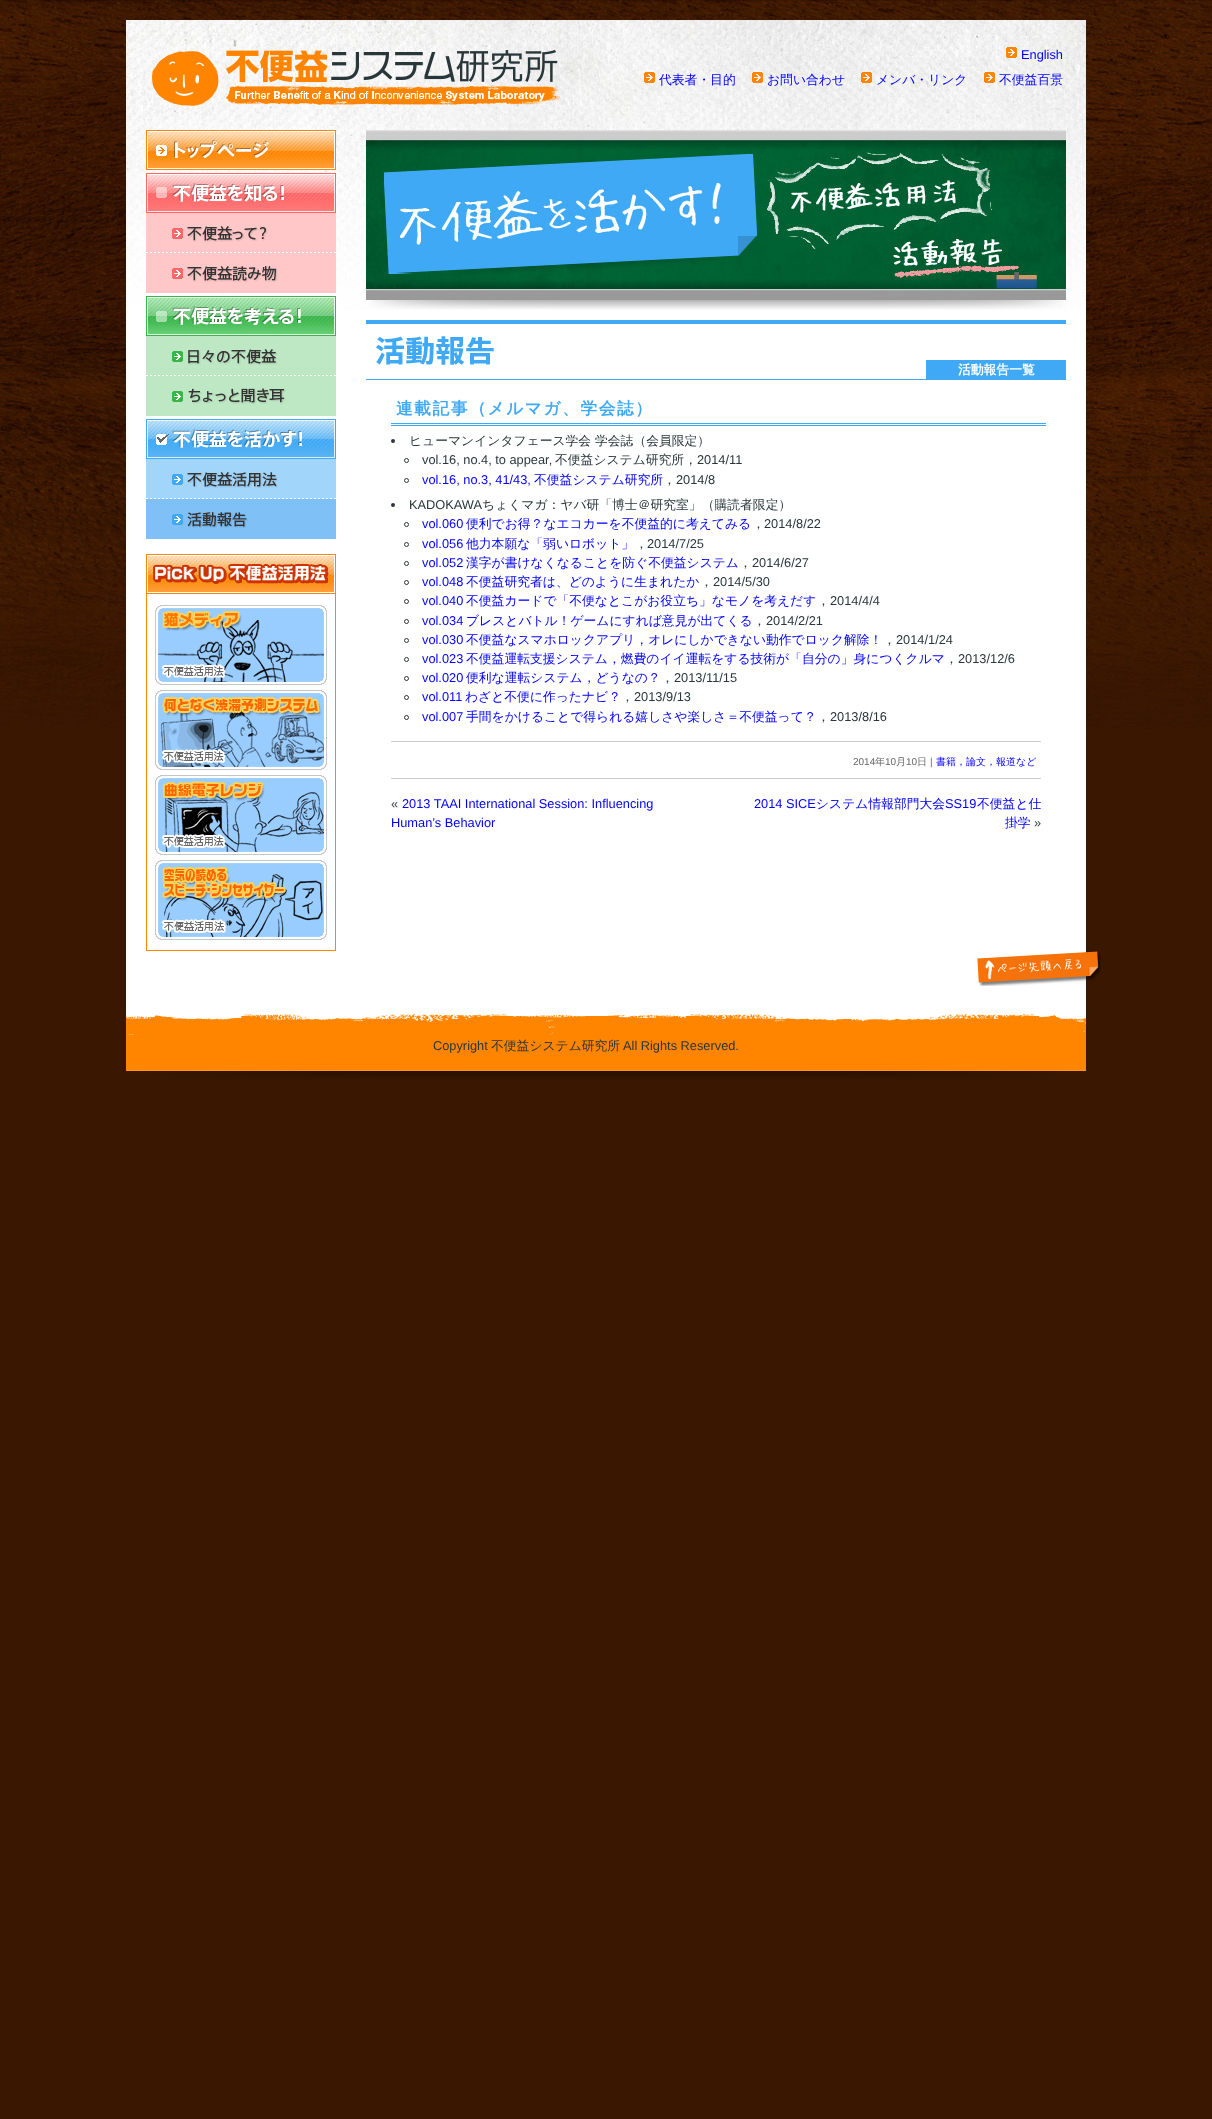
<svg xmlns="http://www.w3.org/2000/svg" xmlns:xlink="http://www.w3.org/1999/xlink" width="1212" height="2119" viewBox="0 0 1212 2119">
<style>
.cls-1{font:12.8px Liberation Sans;fill:#0000ff}
.cls-2{font:500 12.8px WenQuanYi Zen Hei;fill:#0000ff}
.cls-3{font:bold 12.8px WenQuanYi Zen Hei;fill:#ffffff}
.cls-4{font:bold 16.6px WenQuanYi Zen Hei;letter-spacing:1.7px;fill:#3fa9f5}
.cls-5{font:500 12.8px WenQuanYi Zen Hei;fill:#29373a}
.cls-6{font:12.8px Liberation Sans;fill:#29373a}
.cls-7{font:10px Liberation Sans;fill:#666666}
.cls-8{font:500 10px WenQuanYi Zen Hei;fill:#666666}
.cls-9{font:500 10px WenQuanYi Zen Hei;fill:#0000ff}
</style>
<rect width="100%" height="100%" fill="#391701"/>
<image xlink:href="image0.png" x="0" y="0" width="1212" height="729"/>
<rect fill="#ffffff" x="126" y="310" width="960" height="698"/>
<image xlink:href="image1.png" x="126" y="20" width="960" height="290"/>
<image xlink:href="image2.png" x="152" y="50" width="409" height="56"/>
<image xlink:href="image3.png" x="1006" y="47" width="11" height="11"/>
<image xlink:href="image4.png" x="644" y="72" width="11" height="11"/>
<image xlink:href="image5.png" x="752" y="72" width="11" height="11"/>
<image xlink:href="image6.png" x="861" y="72" width="11" height="11"/>
<image xlink:href="image7.png" x="984" y="72" width="11" height="11"/>
<image xlink:href="image8.png" x="146" y="130" width="190" height="40"/>
<image xlink:href="image9.png" x="146" y="173" width="190" height="40"/>
<image xlink:href="image10.png" x="146" y="213" width="190" height="40"/>
<image xlink:href="image11.png" x="146" y="253" width="190" height="40"/>
<image xlink:href="image12.png" x="146" y="296" width="190" height="40"/>
<image xlink:href="image13.png" x="146" y="336" width="190" height="40"/>
<image xlink:href="image14.png" x="146" y="376" width="190" height="40"/>
<image xlink:href="image15.png" x="146" y="419" width="190" height="40"/>
<image xlink:href="image16.png" x="146" y="459" width="190" height="40"/>
<image xlink:href="image17.png" x="146" y="499" width="190" height="40"/>
<rect fill="none" stroke="#ff8500" x="146.5" y="554.5" width="189" height="396"/>
<image xlink:href="image18.png" x="147" y="555" width="188" height="40"/>
<image xlink:href="image19.png" x="155" y="605" width="172" height="80"/>
<image xlink:href="image20.png" x="155" y="690" width="172" height="80"/>
<image xlink:href="image21.png" x="155" y="775" width="172" height="80"/>
<image xlink:href="image22.png" x="155" y="860" width="172" height="80"/>
<image xlink:href="image23.png" x="366" y="130" width="700" height="180"/>
<image xlink:href="image24.png" x="366" y="320" width="700" height="60"/>
<rect fill="#3fa9f5" x="926" y="360" width="140" height="19"/>
<rect fill="#3fa9f5" x="391" y="423" width="655" height="1"/>
<rect fill="#3fa9f5" x="391" y="425" width="655" height="1"/>
<circle fill="#29373a" cx="393" cy="441" r="2"/>
<circle fill="none" stroke="#29373a" cx="406.5" cy="460.5" r="2"/>
<circle fill="none" stroke="#29373a" cx="406.5" cy="480.5" r="2"/>
<circle fill="#29373a" cx="393" cy="505" r="2"/>
<circle fill="none" stroke="#29373a" cx="406.5" cy="524.5" r="2"/>
<circle fill="none" stroke="#29373a" cx="406.5" cy="544.5" r="2"/>
<circle fill="none" stroke="#29373a" cx="406.5" cy="563.5" r="2"/>
<circle fill="none" stroke="#29373a" cx="406.5" cy="582.5" r="2"/>
<circle fill="none" stroke="#29373a" cx="406.5" cy="601.5" r="2"/>
<circle fill="none" stroke="#29373a" cx="406.5" cy="621.5" r="2"/>
<circle fill="none" stroke="#29373a" cx="406.5" cy="640.5" r="2"/>
<circle fill="none" stroke="#29373a" cx="406.5" cy="659.5" r="2"/>
<circle fill="none" stroke="#29373a" cx="406.5" cy="678.5" r="2"/>
<circle fill="none" stroke="#29373a" cx="406.5" cy="697.5" r="2"/>
<circle fill="none" stroke="#29373a" cx="406.5" cy="717.5" r="2"/>
<rect fill="#cccccc" x="391" y="741" width="650" height="1"/>
<rect fill="#cccccc" x="391" y="778" width="650" height="1"/>
<image xlink:href="image25.png" x="126" y="1008" width="960" height="73"/>
<image xlink:href="image26.png" x="977" y="951" width="124" height="35"/>
<text class="cls-1" x="1021" y="59">English</text>
<text class="cls-2" x="659" y="84">代表者・目的</text>
<text class="cls-2" x="767" y="84">お問い合わせ</text>
<text class="cls-2" x="876" y="84">メンバ・リンク</text>
<text class="cls-2" x="999" y="84">不便益百景</text>
<text class="cls-3" x="958" y="374">活動報告一覧</text>
<text class="cls-4" x="396" y="414">連載記事（メルマガ、学会誌）</text>
<text class="cls-5" x="409" y="445">ヒューマンインタフェース学会 学会誌（会員限定）</text>
<text class="cls-6" x="422" y="464">vol.16, no.4, to appear,</text>
<text class="cls-5" x="555" y="464">不便益システム研究所，</text>
<text class="cls-6" x="697" y="464">2014/11</text>
<text class="cls-1" x="422" y="484">vol.16, no.3, 41/43,</text>
<text class="cls-2" x="534" y="484">不便益システム研究所</text>
<text class="cls-6" x="676" y="484">2014/8</text>
<text class="cls-5" x="663" y="484">，</text>
<text class="cls-6" x="409" y="509">KADOKAWA</text>
<text class="cls-5" x="482" y="509">ちょくマガ：ヤバ研「博士＠研究室」（購読者限定）</text>
<text class="cls-1" x="422" y="528">vol.060</text>
<text class="cls-2" x="466" y="528">便利でお得？なエコカーを不便益的に考えてみる</text>
<text class="cls-6" x="764" y="528">2014/8/22</text>
<text class="cls-5" x="752" y="528">，</text>
<text class="cls-1" x="422" y="548">vol.056</text>
<text class="cls-2" x="466" y="548">他力本願な「弱いロボット」</text>
<text class="cls-6" x="647" y="548">2014/7/25</text>
<text class="cls-5" x="635" y="548">，</text>
<text class="cls-1" x="422" y="567">vol.052</text>
<text class="cls-2" x="466" y="567">漢字が書けなくなることを防ぐ不便益システム</text>
<text class="cls-6" x="752" y="567">2014/6/27</text>
<text class="cls-5" x="739" y="567">，</text>
<text class="cls-1" x="422" y="586">vol.048</text>
<text class="cls-2" x="466" y="586">不便益研究者は、どのように生まれたか</text>
<text class="cls-6" x="713" y="586">2014/5/30</text>
<text class="cls-5" x="700" y="586">，</text>
<text class="cls-1" x="422" y="605">vol.040</text>
<text class="cls-2" x="466" y="605">不便益カードで「不便なとこがお役立ち」なモノを考えだす</text>
<text class="cls-6" x="830" y="605">2014/4/4</text>
<text class="cls-5" x="817" y="605">，</text>
<text class="cls-1" x="422" y="625">vol.034</text>
<text class="cls-2" x="466" y="625">ブレスとバトル！ゲームにすれば意見が出てくる</text>
<text class="cls-6" x="766" y="625">2014/2/21</text>
<text class="cls-5" x="753" y="625">，</text>
<text class="cls-1" x="422" y="644">vol.030</text>
<text class="cls-2" x="466" y="644">不便益なスマホロックアプリ，オレにしかできない動作でロック解除！</text>
<text class="cls-6" x="896" y="644">2014/1/24</text>
<text class="cls-5" x="883" y="644">，</text>
<text class="cls-1" x="422" y="663">vol.023</text>
<text class="cls-2" x="466" y="663">不便益運転支援システム，燃費のイイ運転をする技術が「自分の」身につくクルマ</text>
<text class="cls-6" x="958" y="663">2013/12/6</text>
<text class="cls-5" x="945" y="663">，</text>
<text class="cls-1" x="422" y="682">vol.020</text>
<text class="cls-2" x="466" y="682">便利な運転システム，どうなの？</text>
<text class="cls-6" x="674" y="682">2013/11/15</text>
<text class="cls-5" x="661" y="682">，</text>
<text class="cls-1" x="422" y="701">vol.011</text>
<text class="cls-2" x="465" y="701">わざと不便に作ったナビ？</text>
<text class="cls-6" x="634" y="701">2013/9/13</text>
<text class="cls-5" x="621" y="701">，</text>
<text class="cls-1" x="422" y="721">vol.007</text>
<text class="cls-2" x="466" y="721">手間をかけることで得られる嬉しさや楽しさ＝不便益って？</text>
<text class="cls-6" x="830" y="721">2013/8/16</text>
<text class="cls-5" x="817" y="721">，</text>
<text class="cls-7" x="853" y="765">2014</text>
<text class="cls-8" x="875" y="765">年</text>
<text class="cls-7" x="885" y="765">10</text>
<text class="cls-8" x="896" y="765">月</text>
<text class="cls-7" x="906" y="765">10</text>
<text class="cls-8" x="917" y="765">日</text>
<text class="cls-7" x="930" y="765">|</text>
<text class="cls-9" x="936" y="765">書籍，論文，報道など</text>
<text class="cls-6" x="391" y="808">«</text>
<text class="cls-1" x="402" y="808">2013 TAAI International Session: Influencing</text>
<text class="cls-1" x="391" y="827">Human’s Behavior</text>
<text class="cls-1" x="754" y="808">2014 SICE</text>
<text class="cls-2" x="816" y="808">システム情報部門大会</text>
<text class="cls-1" x="945" y="808">SS19</text>
<text class="cls-2" x="977" y="808">不便益と仕</text>
<text class="cls-2" x="1005" y="827">掛学</text>
<text class="cls-6" x="1034" y="827">»</text>
<text class="cls-6" x="433" y="1050">Copyright</text>
<text class="cls-5" x="491" y="1050">不便益システム研究所</text>
<text class="cls-6" x="623" y="1050">All Rights Reserved.</text>
</svg>
